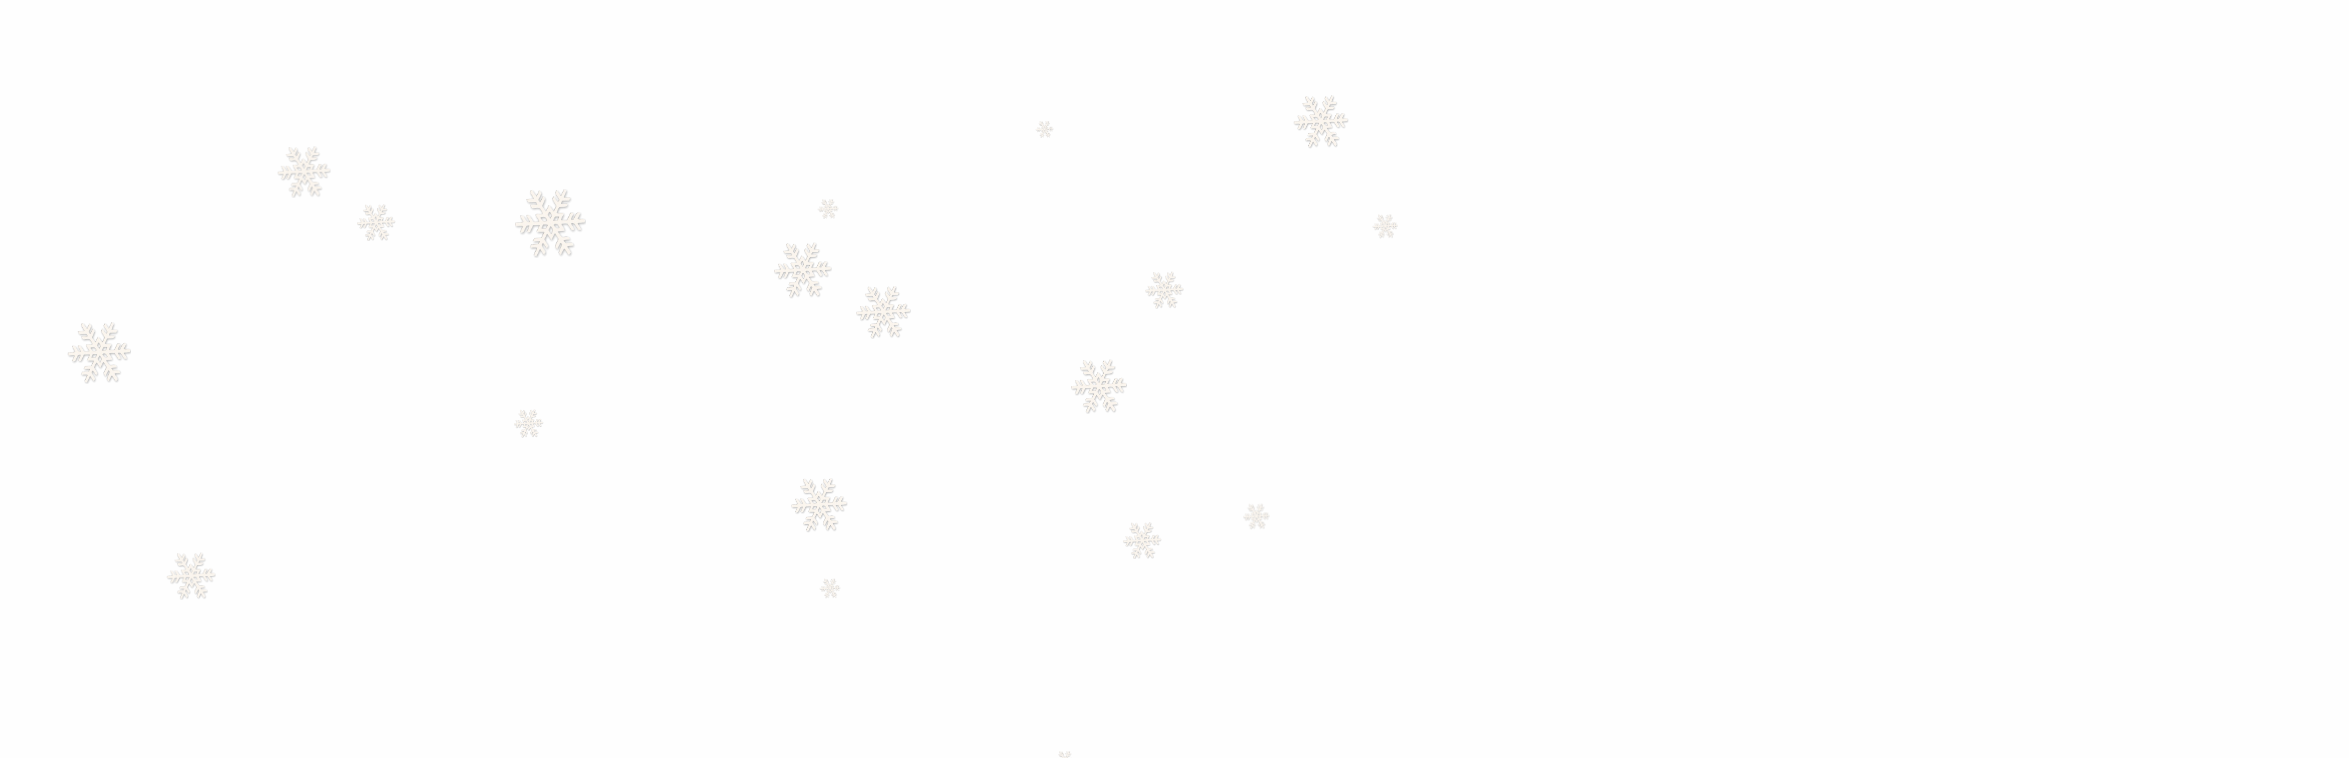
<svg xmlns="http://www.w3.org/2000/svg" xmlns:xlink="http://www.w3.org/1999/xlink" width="2349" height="758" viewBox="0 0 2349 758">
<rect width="100%" height="100%" fill="#fefefe"/>
<image xlink:href="image0.png" x="1035" y="121" width="19" height="17"/>
<image xlink:href="image1.png" x="1293" y="95" width="56" height="54"/>
<image xlink:href="image2.png" x="277" y="146" width="54" height="52"/>
<image xlink:href="image3.png" x="357" y="204" width="39" height="37"/>
<image xlink:href="image4.png" x="515" y="189" width="71" height="69"/>
<image xlink:href="image5.png" x="817" y="199" width="22" height="20"/>
<image xlink:href="image6.png" x="1372" y="214" width="26" height="25"/>
<image xlink:href="image7.png" x="774" y="242" width="58" height="57"/>
<image xlink:href="image8.png" x="856" y="286" width="55" height="53"/>
<image xlink:href="image9.png" x="1145" y="271" width="39" height="38"/>
<image xlink:href="image10.png" x="67" y="322" width="64" height="62"/>
<image xlink:href="image11.png" x="1071" y="359" width="56" height="55"/>
<image xlink:href="image12.png" x="514" y="409" width="30" height="29"/>
<image xlink:href="image13.png" x="791" y="478" width="57" height="55"/>
<image xlink:href="image14.png" x="1243" y="503" width="27" height="27"/>
<image xlink:href="image15.png" x="1123" y="522" width="39" height="37"/>
<image xlink:href="image16.png" x="166" y="552" width="50" height="48"/>
<image xlink:href="image17.png" x="819" y="578" width="22" height="21"/>
<image xlink:href="image18.png" x="1058" y="751" width="14" height="7"/>
</svg>
